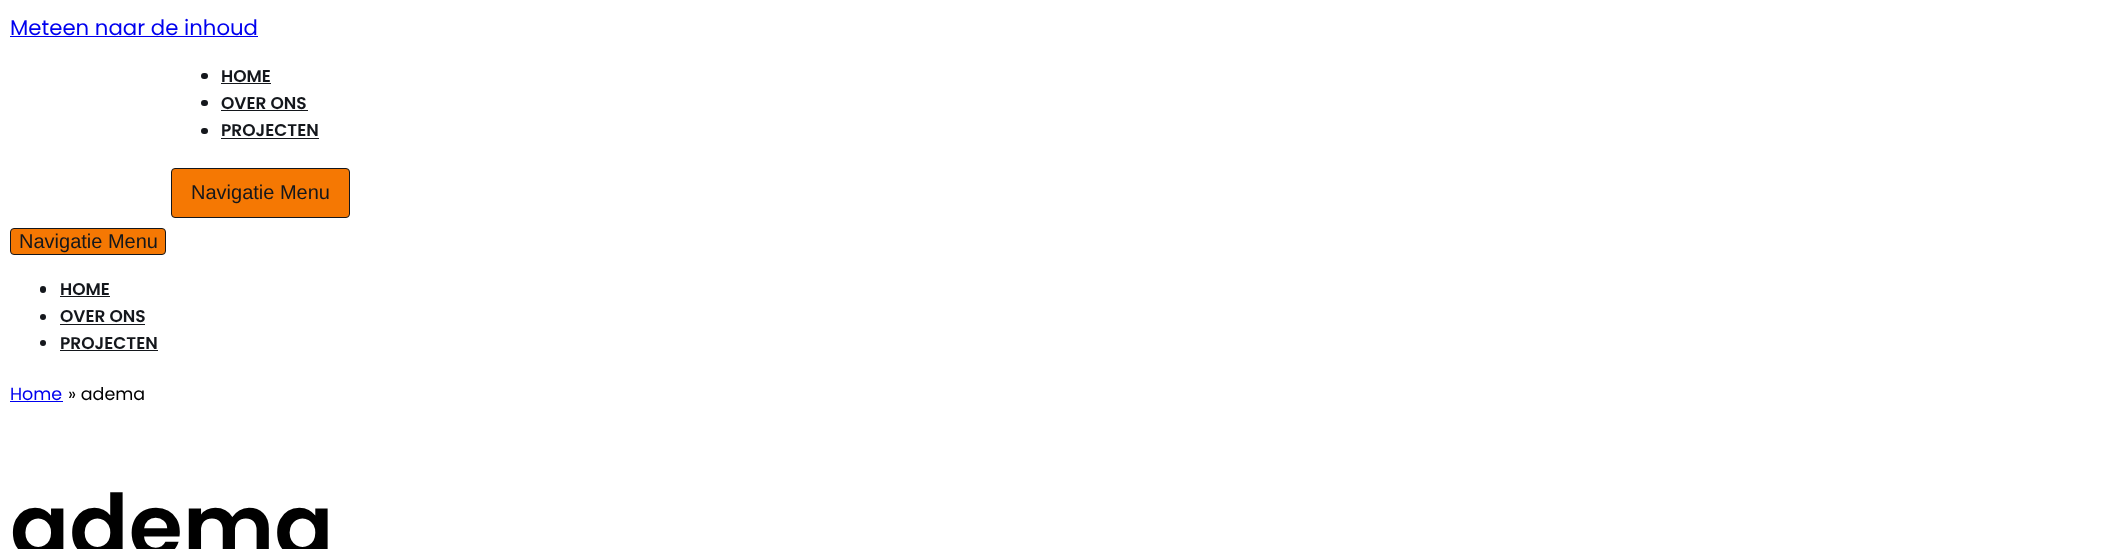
<svg xmlns="http://www.w3.org/2000/svg" xmlns:xlink="http://www.w3.org/1999/xlink" width="2114" height="549" viewBox="0 0 2114 549">
<style>
.cls-1{font:21.25px Poppins;fill:#0000ee}
.cls-2{font:600 17px Poppins;fill:#14171c}
.cls-3{font:20px Liberation Sans;fill:#14171c}
.cls-4{font:17.5px Poppins;fill:#0000ee}
.cls-5{font:17.5px Poppins;fill:#000000}
.cls-6{font:600 87.5px Poppins;fill:#000000}
</style>
<rect width="100%" height="100%" fill="#ffffff"/>
<rect fill="#0000ee" x="10" y="36" width="248" height="1"/>
<rect fill="#14171c" x="201" y="73" width="7" height="6" rx="3"/>
<rect fill="#14171c" x="221" y="83" width="50" height="1"/>
<rect fill="#14171c" x="201" y="100" width="7" height="6" rx="3"/>
<rect fill="#14171c" x="221" y="110" width="87" height="1"/>
<rect fill="#14171c" x="201" y="128" width="7" height="6" rx="3"/>
<rect fill="#14171c" x="221" y="138" width="98" height="1"/>
<rect fill="#f57803" stroke="#14171c" x="171.5" y="168.5" width="178" height="49" rx="3.5"/>
<rect fill="#f57803" stroke="#14171c" x="10.5" y="228.5" width="155" height="26" rx="3.5"/>
<rect fill="#14171c" x="40" y="286" width="6" height="7" rx="3"/>
<rect fill="#14171c" x="60" y="296" width="50" height="1"/>
<circle fill="#14171c" cx="43" cy="317" r="3"/>
<rect fill="#14171c" x="60" y="324" width="85" height="1"/>
<circle fill="#14171c" cx="43" cy="343" r="3"/>
<rect fill="#14171c" x="60" y="350" width="98" height="1"/>
<rect fill="#0000ee" x="10" y="401" width="53" height="1"/>
<text class="cls-1" x="10" y="35">Meteen naar de inhoud</text>
<text class="cls-2"><tspan x="221" y="82">HOME</tspan><tspan x="221" y="109">OVER ONS</tspan><tspan x="221" y="136">PROJECTEN</tspan></text>
<text class="cls-3" x="191" y="199">Navigatie Menu</text>
<text class="cls-3" x="19" y="248">Navigatie Menu</text>
<text class="cls-2"><tspan x="60" y="295">HOME</tspan><tspan x="60" y="322">OVER ONS</tspan><tspan x="60" y="349">PROJECTEN</tspan></text>
<text class="cls-4" x="10" y="400">Home</text>
<text class="cls-5" x="68" y="400">» adema</text>
<text class="cls-6" x="10" y="557">adema</text>
</svg>
